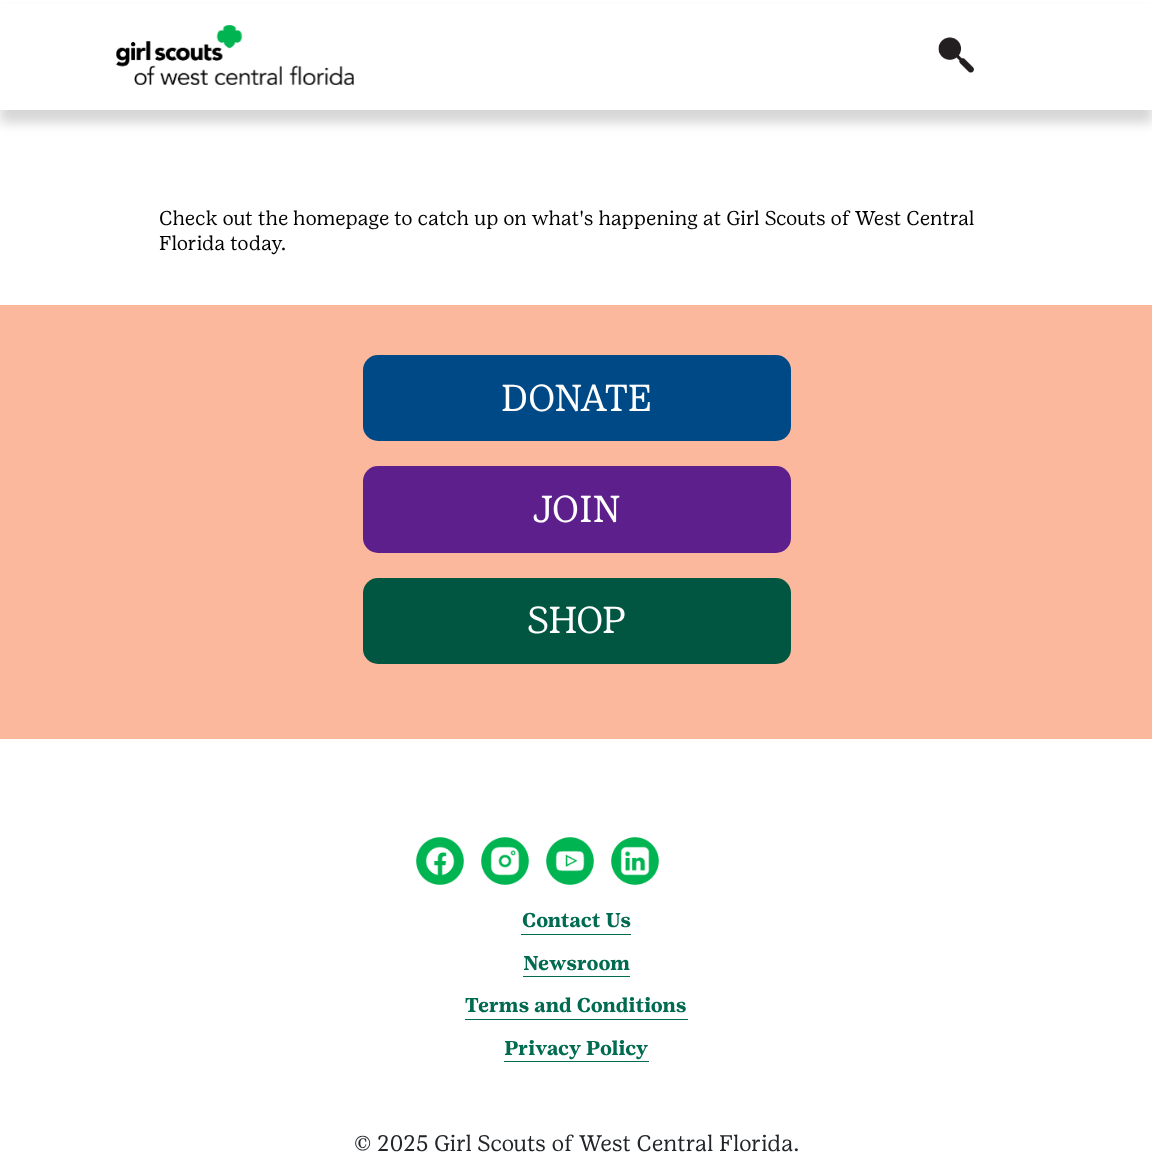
<svg xmlns="http://www.w3.org/2000/svg" xmlns:xlink="http://www.w3.org/1999/xlink" width="1152" height="1171" viewBox="0 0 1152 1171">
<style>
.cls-1{font:20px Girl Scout;fill:#000000}
.cls-2{font:37.5px Girl Scout;fill:#ffffff}
.cls-3{font:bold 20px Girl Scout;fill:#006b50}
.cls-4{font:22.5px Girl Scout;fill:#212529}
</style>
<rect width="100%" height="100%" fill="#ffffff"/>
<rect fill="#000000" fill-opacity="0.16" filter="blur(6px)" x="0" y="13" width="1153" height="110"/>
<rect fill="#ffffff" x="0" y="4" width="1152" height="106"/>
<image xlink:href="image0.png" x="116" y="25" width="238" height="60"/>
<image xlink:href="image1.png" x="938" y="37" width="36" height="36"/>
<rect fill="#fcb89d" x="0" y="305" width="1152" height="434"/>
<rect fill="#004987" x="363" y="355" width="428" height="86" rx="15"/>
<rect fill="#5c1f8b" x="363" y="466" width="428" height="87" rx="15"/>
<rect fill="#005640" x="363" y="578" width="428" height="86" rx="15"/>
<image xlink:href="image2.png" x="416" y="837" width="48" height="48"/>
<image xlink:href="image3.png" x="481" y="837" width="48" height="48"/>
<image xlink:href="image4.png" x="546" y="837" width="48" height="48"/>
<image xlink:href="image5.png" x="611" y="837" width="48" height="48"/>
<rect fill="#006b50" x="521" y="934" width="110" height="1"/>
<rect fill="#006b50" x="523" y="976" width="107" height="1"/>
<rect fill="#006b50" x="465" y="1019" width="223" height="1"/>
<rect fill="#006b50" x="504" y="1061" width="145" height="1"/>
<text class="cls-1"><tspan x="159" y="225">Check out the homepage to catch up on what's happening at Girl Scouts of West Central</tspan><tspan x="159" y="250">Florida today.</tspan></text>
<text class="cls-2" x="501" y="411">DONATE</text>
<text class="cls-2" x="532" y="522">JOIN</text>
<text class="cls-2" x="527" y="633">SHOP</text>
<text class="cls-3" x="522" y="927">Contact Us</text>
<text class="cls-3" x="523" y="970">Newsroom</text>
<text class="cls-3" x="465" y="1012">Terms and Conditions</text>
<text class="cls-3" x="504" y="1055">Privacy Policy</text>
<text class="cls-4" x="354" y="1151">© 2025 Girl Scouts of West Central Florida.</text>
</svg>
